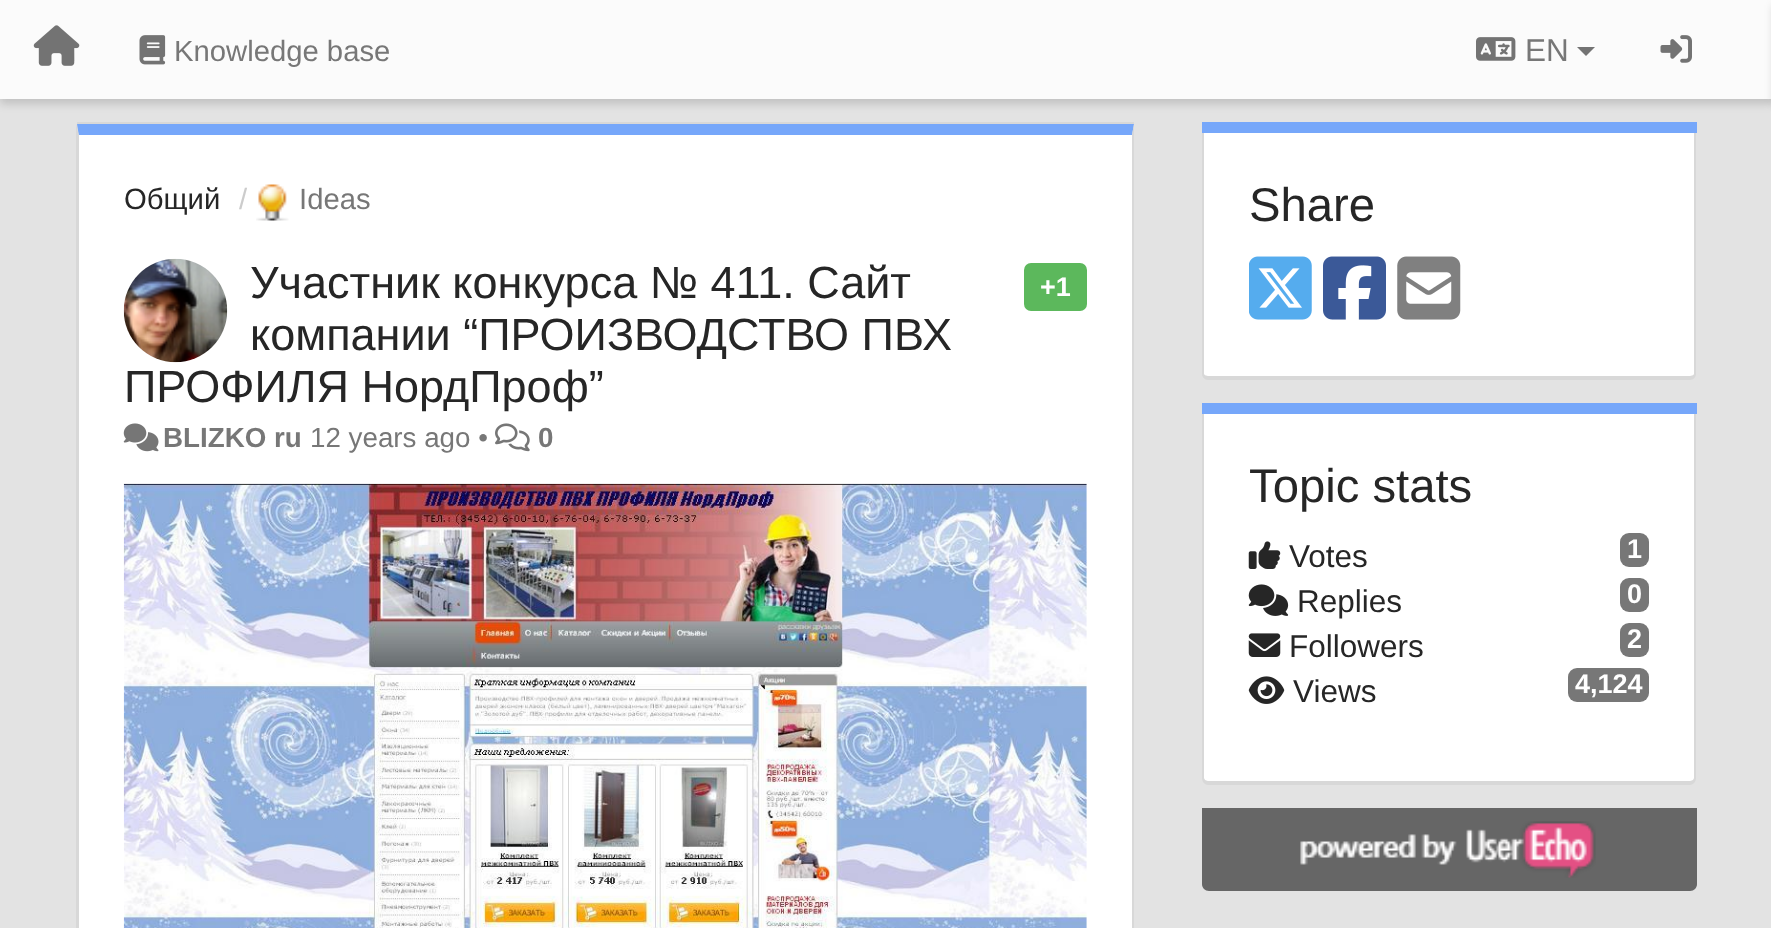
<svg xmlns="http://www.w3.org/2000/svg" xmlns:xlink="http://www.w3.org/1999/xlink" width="1771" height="928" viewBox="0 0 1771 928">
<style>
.cls-1{font:29.25px Liberation Sans;fill:#777777}
.cls-2{font:31.5px Liberation Sans;fill:#777777}
.cls-3{font:29.25px Liberation Sans;fill:#262626}
.cls-4{font:29.25px Liberation Sans;fill:#cccccc}
.cls-5{font:45px Liberation Sans;fill:#262626}
.cls-6{font:bold 27px Liberation Sans;fill:#ffffff}
.cls-7{font:bold 27.75px Liberation Sans;fill:#777777}
.cls-8{font:27.75px Liberation Sans;fill:#777777}
.cls-9{font:47.25px Liberation Sans;fill:#262626}
.cls-10{font:31.5px Liberation Sans;fill:#262626}
</style>
<rect width="100%" height="100%" fill="#e3e3e3"/>
<rect fill="#000000" fill-opacity="0.15" filter="blur(4.5px)" x="0" y="5" width="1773" height="99"/>
<rect fill="#fbfbfb" x="0" y="0" width="1771" height="99"/>
<image xlink:href="image0.png" x="33" y="25" width="47" height="41"/>
<image xlink:href="image1.png" x="139" y="35" width="27" height="30"/>
<image xlink:href="image2.png" x="1476" y="37" width="40" height="24"/>
<path fill="#737373" d="M1577 47H1595L1586 56Z"/>
<image xlink:href="image3.png" x="1660" y="35" width="32" height="28"/>
<rect fill="#000000" fill-opacity="0.15" filter="blur(4.5px)" x="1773" y="5" width="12" height="99"/>
<rect fill="#d8d8d8" x="77" y="122" width="1057" height="2"/>
<path fill="#ffffff" d="M79 135H1132V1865C1132 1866 1130 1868 1127 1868H83C81 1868 79 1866 79 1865Z"/>
<path fill="#76a7fa" d="M79 135H1132L1134 124H77L79 136Z"/>
<path fill="#d8d8d8" d="M1134 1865V124L1132 135V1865L1131 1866L1133 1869C1133 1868 1134 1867 1134 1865Z"/>
<path fill="#d8d8d8" d="M76 124L79 136V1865V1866L78 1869L76 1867Z"/>
<image xlink:href="image4.png" x="256" y="184" width="33" height="37"/>
<image xlink:href="image5.png" x="123" y="258" width="105" height="105"/>
<rect fill="#5cb85c" x="1024" y="263" width="63" height="48" rx="7"/>
<image xlink:href="image6.png" x="123" y="423" width="36" height="29"/>
<image xlink:href="image7.png" x="495" y="423" width="35" height="29"/>
<image xlink:href="image8.png" x="123" y="483" width="964" height="445"/>
<rect fill="#76a7fa" x="1202" y="122" width="495" height="11"/>
<path fill="#ffffff" d="M1204 133H1694V374C1694 375 1692 376 1690 376H1208C1206 376 1204 375 1204 374Z"/>
<path fill="#d8d8d8" fill-rule="evenodd" d="M1202 133H1696V374C1696 377 1693 380 1690 380H1208C1205 380 1202 377 1202 374ZM1204 133H1694V374C1694 375 1692 376 1690 376H1208C1206 376 1204 375 1204 374Z"/>
<image xlink:href="image9.png" x="1249" y="256" width="63" height="64"/>
<image xlink:href="image10.png" x="1323" y="256" width="63" height="64"/>
<image xlink:href="image11.png" x="1397" y="256" width="64" height="64"/>
<rect fill="#76a7fa" x="1202" y="403" width="495" height="11"/>
<path fill="#ffffff" d="M1204 414H1694V778C1694 780 1692 781 1690 781H1208C1206 781 1204 780 1204 778Z"/>
<path fill="#d8d8d8" fill-rule="evenodd" d="M1202 414H1696V778C1696 782 1693 785 1690 785H1208C1205 785 1202 782 1202 778ZM1204 414H1694V778C1694 780 1692 781 1690 781H1208C1206 781 1204 780 1204 778Z"/>
<image xlink:href="image12.png" x="1248" y="541" width="33" height="28"/>
<rect fill="#777777" x="1620" y="533" width="29" height="34" rx="9"/>
<image xlink:href="image13.png" x="1248" y="584" width="41" height="32"/>
<rect fill="#777777" x="1620" y="578" width="29" height="34" rx="9"/>
<image xlink:href="image14.png" x="1248" y="633" width="33" height="24"/>
<rect fill="#777777" x="1620" y="623" width="29" height="34" rx="9"/>
<image xlink:href="image15.png" x="1248" y="676" width="37" height="28"/>
<rect fill="#777777" x="1568" y="668" width="81" height="34" rx="9"/>
<path fill="#666666" d="M1202 808H1697V884C1697 888 1694 891 1690 891H1209C1205 891 1202 888 1202 884Z"/>
<image xlink:href="image16.png" x="1300" y="821" width="296" height="57"/>
<text class="cls-1" x="174" y="61">Knowledge base</text>
<text class="cls-2" x="1525" y="61">EN</text>
<text class="cls-3" x="124" y="209">Общий</text>
<text class="cls-4" x="239" y="209">/</text>
<text class="cls-1" x="299" y="209">Ideas</text>
<text class="cls-5"><tspan x="250" y="298">Участник конкурса № 411. Сайт</tspan><tspan x="250" y="350">компании “ПРОИЗВОДСТВО ПВХ</tspan></text>
<text class="cls-5" x="124" y="402">ПРОФИЛЯ НордПроф”</text>
<text class="cls-6" x="1040" y="296">+1</text>
<text class="cls-7" x="163" y="447">BLIZKO ru</text>
<text class="cls-8" x="310" y="447">12 years ago •</text>
<text class="cls-7" x="538" y="447">0</text>
<text class="cls-9" x="1249" y="221">Share</text>
<text class="cls-9" x="1249" y="502">Topic stats</text>
<text class="cls-10" x="1289" y="567">Votes</text>
<text class="cls-6" x="1627" y="558">1</text>
<text class="cls-10" x="1297" y="612">Replies</text>
<text class="cls-6" x="1627" y="603">0</text>
<text class="cls-10" x="1289" y="657">Followers</text>
<text class="cls-6" x="1627" y="648">2</text>
<text class="cls-10" x="1293" y="702">Views</text>
<text class="cls-6" x="1575" y="693">4,124</text>
</svg>
